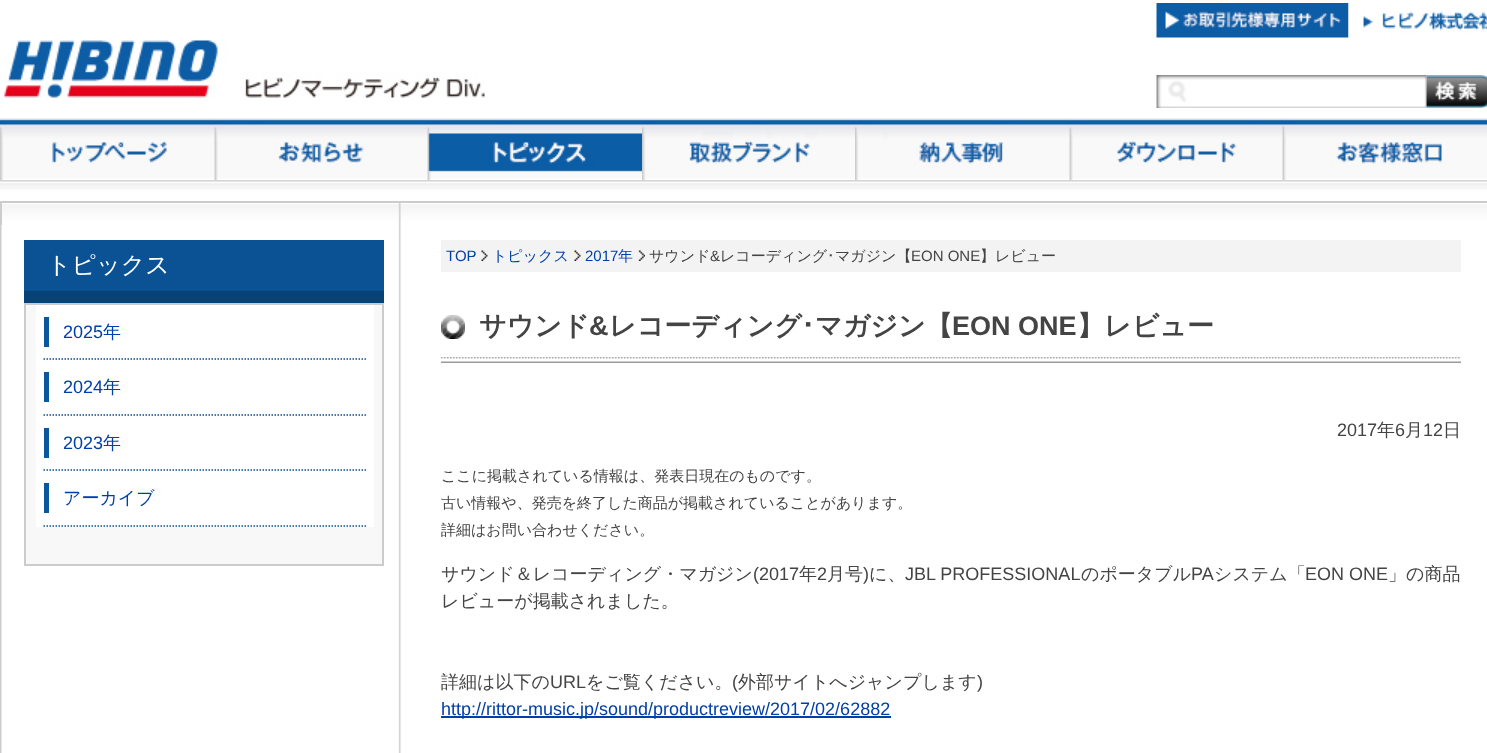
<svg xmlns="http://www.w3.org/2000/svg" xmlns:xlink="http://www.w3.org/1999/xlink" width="1487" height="753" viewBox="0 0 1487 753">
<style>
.cls-1{font:500 24px WenQuanYi Zen Hei;fill:#ffffff}
.cls-2{font:18px Liberation Sans;fill:#003fa9}
.cls-3{font:500 18px WenQuanYi Zen Hei;fill:#003fa9}
.cls-4{font:15px Liberation Sans;fill:#003fa9}
.cls-5{font:500 15px WenQuanYi Zen Hei;fill:#003fa9}
.cls-6{font:500 15px WenQuanYi Zen Hei;fill:#444444}
.cls-7{font:15px Liberation Sans;fill:#444444}
.cls-8{font:15px IPAPGothic;fill:#444444}
.cls-9{font:bold 27px WenQuanYi Zen Hei;fill:#444444}
.cls-10{font:bold 27px Liberation Sans;fill:#444444}
.cls-11{font:bold 27px IPAPGothic;fill:#444444}
.cls-12{font:18px Liberation Sans;fill:#444444}
.cls-13{font:500 18px WenQuanYi Zen Hei;fill:#444444}
</style>
<rect width="100%" height="100%" fill="#ffffff"/>
<image xlink:href="image0.png" x="4" y="40" width="481" height="58"/>
<image xlink:href="image1.png" x="1156" y="3" width="193" height="35"/>
<image xlink:href="image2.png" x="1348" y="3" width="139" height="35"/>
<image xlink:href="image3.png" x="1156" y="75" width="271" height="33"/>
<image xlink:href="image4.png" x="1426" y="75" width="61" height="33"/>
<image xlink:href="image5.png" x="0" y="118" width="1487" height="72"/>
<image xlink:href="image6.png" x="0" y="118" width="215" height="62"/>
<image xlink:href="image7.png" x="214" y="118" width="214" height="62"/>
<image xlink:href="image8.png" x="427" y="118" width="215" height="62"/>
<image xlink:href="image9.png" x="642" y="118" width="213" height="62"/>
<image xlink:href="image10.png" x="855" y="118" width="215" height="62"/>
<image xlink:href="image11.png" x="1069" y="118" width="214" height="62"/>
<image xlink:href="image12.png" x="1282" y="118" width="205" height="62"/>
<image xlink:href="image13.png" x="2" y="203" width="1485" height="24"/>
<rect fill="none" stroke="#cccccc" stroke-width="2" x="1" y="202" width="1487" height="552"/>
<image xlink:href="image14.png" x="1" y="225" width="400" height="528"/>
<rect fill="#0b5294" x="24" y="240" width="360" height="51"/>
<rect fill="#064276" x="24" y="291" width="360" height="12"/>
<rect fill="#f8f8f8" stroke="#cccccc" stroke-width="2" x="25" y="304" width="358" height="261"/>
<rect fill="#ffffff" x="36" y="305" width="338" height="222"/>
<path fill="none" stroke="#0a5091" stroke-width="1.5" stroke-dasharray="1.5 1.5" d="M43.5 359H366"/>
<rect fill="#0b579c" x="44" y="317" width="5" height="30"/>
<path fill="none" stroke="#0a5091" stroke-width="1.5" stroke-dasharray="1.5 1.5" d="M43.5 415H366"/>
<rect fill="#0b579c" x="44" y="372" width="5" height="30"/>
<path fill="none" stroke="#0a5091" stroke-width="1.5" stroke-dasharray="1.5 1.5" d="M43.5 470H366"/>
<rect fill="#0b579c" x="44" y="428" width="5" height="30"/>
<path fill="none" stroke="#0a5091" stroke-width="1.5" stroke-dasharray="1.5 1.5" d="M43.5 526H366"/>
<rect fill="#0b579c" x="44" y="483" width="5" height="30"/>
<rect fill="#f3f3f3" x="441" y="240" width="1020" height="32"/>
<image xlink:href="image15.png" x="481" y="250" width="7" height="11"/>
<image xlink:href="image15.png" x="574" y="250" width="7" height="11"/>
<image xlink:href="image16.png" x="638" y="250" width="7" height="11"/>
<image xlink:href="image17.png" x="441" y="357" width="1020" height="6"/>
<image xlink:href="image18.png" x="441" y="315" width="24" height="24"/>
<rect fill="#003fa9" x="441" y="716" width="212" height="2"/>
<rect fill="#003fa9" x="653" y="716" width="238" height="2"/>
<text class="cls-1" x="47" y="273">トピックス</text>
<text class="cls-2" x="63" y="338">2025</text>
<text class="cls-3" x="103" y="338">年</text>
<text class="cls-2" x="63" y="393">2024</text>
<text class="cls-3" x="103" y="393">年</text>
<text class="cls-2" x="63" y="449">2023</text>
<text class="cls-3" x="103" y="449">年</text>
<text class="cls-3" x="63" y="504">アーカイブ</text>
<text class="cls-4" x="446" y="261">TOP</text>
<text class="cls-5" x="492" y="261">トピックス</text>
<text class="cls-4" x="585" y="261">2017</text>
<text class="cls-5" x="618" y="261">年</text>
<text class="cls-6" x="649" y="261">サウンド</text>
<text class="cls-7" x="710" y="261">&amp;</text>
<text class="cls-6" x="720" y="261">レコーディング</text>
<text class="cls-8" x="827" y="261">･</text>
<text class="cls-6" x="835" y="261">マガジン【</text>
<text class="cls-7" x="911" y="261">EON ONE</text>
<text class="cls-6" x="980" y="261">】レビュー</text>
<text class="cls-9" x="479" y="335">サウンド</text>
<text class="cls-10" x="589" y="335">&amp;</text>
<text class="cls-9" x="609" y="335">レコーディング</text>
<text class="cls-11" x="801" y="335">･</text>
<text class="cls-9" x="815" y="335">マガジン【</text>
<text class="cls-10" x="952" y="335">EON ONE</text>
<text class="cls-9" x="1077" y="335">】レビュー</text>
<text class="cls-12" x="1337" y="436">2017</text>
<text class="cls-13" x="1377" y="436">年</text>
<text class="cls-12" x="1395" y="436">6</text>
<text class="cls-13" x="1405" y="436">月</text>
<text class="cls-12" x="1423" y="436">12</text>
<text class="cls-13" x="1443" y="436">日</text>
<text class="cls-6"><tspan x="441" y="481">ここに掲載されている情報は、発表日現在のものです。</tspan><tspan x="441" y="508">古い情報や、発売を終了した商品が掲載されていることがあります。</tspan><tspan x="441" y="535">詳細はお問い合わせください。</tspan></text>
<text class="cls-13" x="441" y="580">サウンド＆レコーディング・マガジン</text>
<text class="cls-12" x="753" y="580">(2017</text>
<text class="cls-13" x="799" y="580">年</text>
<text class="cls-12" x="817" y="580">2</text>
<text class="cls-13" x="827" y="580">月号</text>
<text class="cls-12" x="863" y="580">)</text>
<text class="cls-13" x="869" y="580">に、</text>
<text class="cls-12" x="905" y="580">JBL PROFESSIONAL</text>
<text class="cls-13" x="1081" y="580">のポータブル</text>
<text class="cls-12" x="1191" y="580">PA</text>
<text class="cls-13" x="1214" y="580">システム「</text>
<text class="cls-12" x="1305" y="580">EON ONE</text>
<text class="cls-13" x="1388" y="580">」の商品</text>
<text class="cls-13" x="441" y="607">レビューが掲載されました。</text>
<text class="cls-13" x="441" y="688">詳細は以下の</text>
<text class="cls-12" x="550" y="688">URL</text>
<text class="cls-13" x="586" y="688">をご覧ください。</text>
<text class="cls-12" x="732" y="688">(</text>
<text class="cls-13" x="738" y="688">外部サイトへジャンプします</text>
<text class="cls-12" x="977" y="688">)</text>
<text class="cls-2" x="441" y="715">http://rittor-music.jp/sound/</text>
<text class="cls-2" x="653" y="715">productreview/2017/02/62882</text>
</svg>
